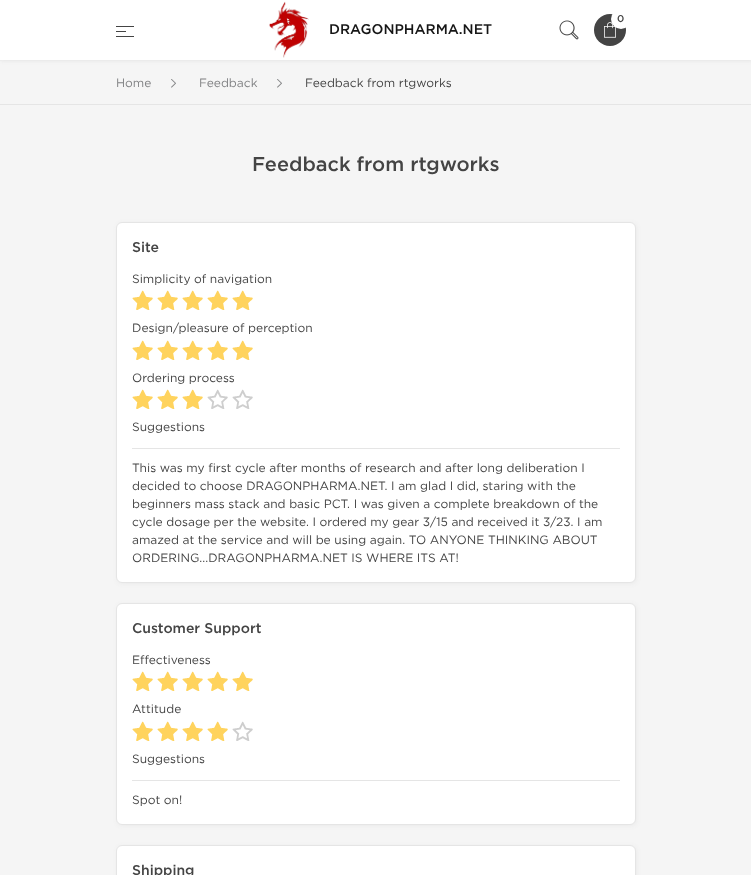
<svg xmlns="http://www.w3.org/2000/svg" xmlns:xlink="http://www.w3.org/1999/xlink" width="751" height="875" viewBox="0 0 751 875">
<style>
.cls-1{font:500 10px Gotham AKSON;fill:#444444}
.cls-2{font:500 14px Gotham AKSON;fill:#161616}
.cls-3{font:12px Gotham AKSON;fill:#818284}
.cls-4{font:12px Gotham AKSON;fill:#444444}
.cls-5{font:500 20px Gotham AKSON;fill:#444444}
.cls-6{font:500 14px Gotham AKSON;fill:#444444}
</style>
<rect width="100%" height="100%" fill="#f5f5f5"/>
<rect fill="#444444" fill-opacity="0.06" filter="blur(1.5px)" x="1" y="1" width="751" height="61"/>
<rect fill="#ffffff" x="0" y="0" width="751" height="60"/>
<rect fill="#ececec" x="0" y="60" width="2" height="1"/>
<circle fill="#444444" cx="610" cy="30" r="16"/>
<image xlink:href="image0.png" x="604" y="22" width="12" height="16"/>
<circle fill="#ffffff" cx="621" cy="19" r="10"/>
<image xlink:href="image1.png" x="559" y="20" width="20" height="20"/>
<image xlink:href="image2.png" x="116" y="26" width="18" height="11"/>
<image xlink:href="image3.png" x="269" y="1" width="40" height="57"/>
<rect fill="#e5e5e5" x="0" y="104" width="751" height="1"/>
<image xlink:href="image4.png" x="171" y="79" width="5" height="9"/>
<image xlink:href="image4.png" x="277" y="79" width="5" height="9"/>
<rect fill="#444444" fill-opacity="0.06" filter="blur(2.5px)" x="117" y="223" width="520" height="361" rx="6"/>
<rect fill="#ffffff" stroke="#e5e5e5" x="116.5" y="222.5" width="519" height="360" rx="5.5"/>
<image xlink:href="image5.png" x="132" y="290" width="121" height="20"/>
<image xlink:href="image5.png" x="132" y="340" width="121" height="20"/>
<image xlink:href="image6.png" x="132" y="389" width="121" height="20"/>
<rect fill="#e5e5e5" x="132" y="448" width="488" height="1"/>
<rect fill="#444444" fill-opacity="0.06" filter="blur(2.5px)" x="117" y="604" width="520" height="222" rx="6"/>
<rect fill="#ffffff" stroke="#e5e5e5" x="116.5" y="603.5" width="519" height="221" rx="5.5"/>
<image xlink:href="image5.png" x="132" y="671" width="121" height="20"/>
<image xlink:href="image7.png" x="132" y="721" width="121" height="20"/>
<rect fill="#e5e5e5" x="132" y="780" width="488" height="1"/>
<rect fill="#444444" fill-opacity="0.06" filter="blur(2.5px)" x="117" y="846" width="520" height="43" rx="6"/>
<rect fill="#ffffff" stroke="#e5e5e5" x="116.5" y="845.5" width="519" height="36" rx="5.5"/>
<text class="cls-1" x="617" y="22">0</text>
<text class="cls-2" x="329" y="34">DRAGONPHARMA.NET</text>
<text class="cls-3" x="116" y="87">Home</text>
<text class="cls-3" x="199" y="87">Feedback</text>
<text class="cls-4" x="305" y="87">Feedback from rtgworks</text>
<text class="cls-5" x="252" y="171">Feedback from rtgworks</text>
<text class="cls-6" x="132" y="252">Site</text>
<text class="cls-4" x="132" y="283">Simplicity of navigation</text>
<text class="cls-4" x="132" y="332">Design/pleasure of perception</text>
<text class="cls-4" x="132" y="382">Ordering process</text>
<text class="cls-4" x="132" y="431">Suggestions</text>
<text class="cls-4"><tspan x="132" y="472">This was my first cycle after months of research and after long deliberation I</tspan><tspan x="132" y="490">decided to choose DRAGONPHARMA.NET. I am glad I did, staring with the</tspan><tspan x="132" y="508">beginners mass stack and basic PCT. I was given a complete breakdown of the</tspan><tspan x="132" y="526">cycle dosage per the website. I ordered my gear 3/15 and received it 3/23. I am</tspan><tspan x="132" y="544">amazed at the service and will be using again. TO ANYONE THINKING ABOUT</tspan><tspan x="132" y="562">ORDERING...DRAGONPHARMA.NET IS WHERE ITS AT!</tspan></text>
<text class="cls-6" x="132" y="633">Customer Support</text>
<text class="cls-4" x="132" y="664">Effectiveness</text>
<text class="cls-4" x="132" y="713">Attitude</text>
<text class="cls-4" x="132" y="763">Suggestions</text>
<text class="cls-4" x="132" y="804">Spot on!</text>
<text class="cls-6" x="132" y="875">Shipping</text>
</svg>
